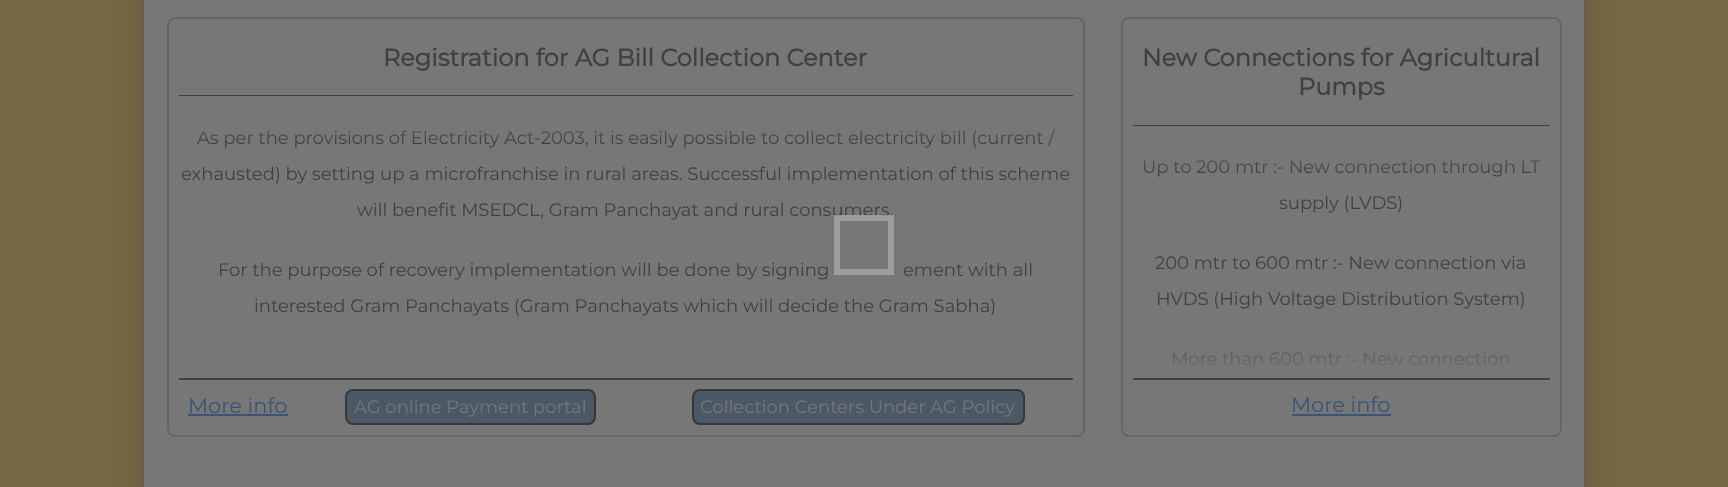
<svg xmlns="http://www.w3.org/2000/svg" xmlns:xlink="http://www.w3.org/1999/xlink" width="1728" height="487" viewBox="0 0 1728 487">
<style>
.cls-1{font:bold 24px Montserrat;fill:#404142}
.cls-2{font:100 18px Montserrat;fill:#404142}
.cls-3{font:100 21px Montserrat;fill:#3b5377}
.cls-4{font:100 18px Montserrat;fill:#777777}
</style>
<defs>
<linearGradient id="g1" gradientUnits="userSpaceOnUse" x1="626" y1="96" x2="626" y2="144"><stop offset="0" stop-color="#777777"/><stop offset="1" stop-color="#777777" stop-opacity="0"/></linearGradient>
<linearGradient id="g2" gradientUnits="userSpaceOnUse" x1="1341" y1="126" x2="1341" y2="174"><stop offset="0" stop-color="#777777"/><stop offset="1" stop-color="#777777" stop-opacity="0"/></linearGradient>
<linearGradient id="g3" gradientUnits="userSpaceOnUse" x1="1341" y1="377" x2="1341" y2="329"><stop offset="0" stop-color="#777777"/><stop offset="1" stop-color="#777777" stop-opacity="0"/></linearGradient>
</defs>
<rect width="100%" height="100%" fill="#776745"/>
<rect fill="#383838" fill-opacity="0.19" filter="blur(15px)" x="144" y="-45" width="1440" height="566"/>
<rect fill="#383838" fill-opacity="0.2" filter="blur(12px)" x="144" y="-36" width="1440" height="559"/>
<rect fill="#777777" x="144" y="0" width="1440" height="487"/>
<rect fill="none" stroke="#666666" stroke-width="2" x="168" y="18" width="916" height="418" rx="7"/>
<rect fill="#404142" x="179" y="95" width="894" height="2"/>
<rect fill="#404142" x="179" y="378" width="894" height="2"/>
<rect fill="#3b5377" x="188" y="414" width="100" height="2"/>
<rect fill="#4b5966" stroke="#383838" stroke-width="2" x="346" y="390" width="249" height="34" rx="7"/>
<rect fill="#4b5966" stroke="#383838" stroke-width="2" x="693" y="390" width="331" height="34" rx="7"/>
<rect fill="none" stroke="#666666" stroke-width="2" x="1122" y="18" width="439" height="418" rx="7"/>
<rect fill="#404142" x="1133" y="125" width="417" height="2"/>
<rect fill="#404142" x="1133" y="378" width="417" height="2"/>
<rect fill="#3b5377" x="1292" y="414" width="99" height="2"/>
<text class="cls-1" x="383" y="66">Registration for AG Bill Collection Center</text>
<text class="cls-2" x="197" y="144">As per the provisions of Electricity Act-2003, it is easily possible to collect electricity bill (current /</text>
<rect fill="url(#g1)" x="179" y="96" width="894" height="46"/>
<text class="cls-2" x="181" y="180">exhausted) by setting up a microfranchise in rural areas. Successful implementation of this scheme</text>
<text class="cls-2" x="357" y="216">will benefit MSEDCL, Gram Panchayat and rural consumers.</text>
<text class="cls-2" x="218" y="276">For the purpose of recovery implementation will be done by signing</text>
<text class="cls-2" x="903" y="276">ement with all</text>
<text class="cls-2" x="254" y="312">interested Gram Panchayats (Gram Panchayats which will decide the Gram Sabha)</text>
<text class="cls-3" x="188" y="413">More info</text>
<text class="cls-4" x="354" y="413">AG online Payment portal</text>
<text class="cls-4" x="700" y="413">Collection Centers Under AG Policy</text>
<text class="cls-1" x="1142" y="66">New Connections for Agricultural</text>
<text class="cls-1" x="1298" y="95">Pumps</text>
<text class="cls-2" x="1142" y="173">Up to 200 mtr :- New connection through LT</text>
<rect fill="url(#g2)" x="1133" y="126" width="417" height="46"/>
<text class="cls-2" x="1279" y="209">supply (LVDS)</text>
<text class="cls-2" x="1155" y="269">200 mtr to 600 mtr :- New connection via</text>
<text class="cls-2" x="1156" y="305">HVDS (High Voltage Distribution System)</text>
<text class="cls-2" x="1171" y="365">More than 600 mtr :- New connection</text>
<rect fill="url(#g3)" x="1173" y="351" width="336" height="15"/>
<text class="cls-3" x="1291" y="412">More info</text>
<rect fill="none" stroke="#aaaaaa" stroke-opacity="0.74" stroke-width="6" x="837" y="218" width="54" height="54"/>
</svg>
